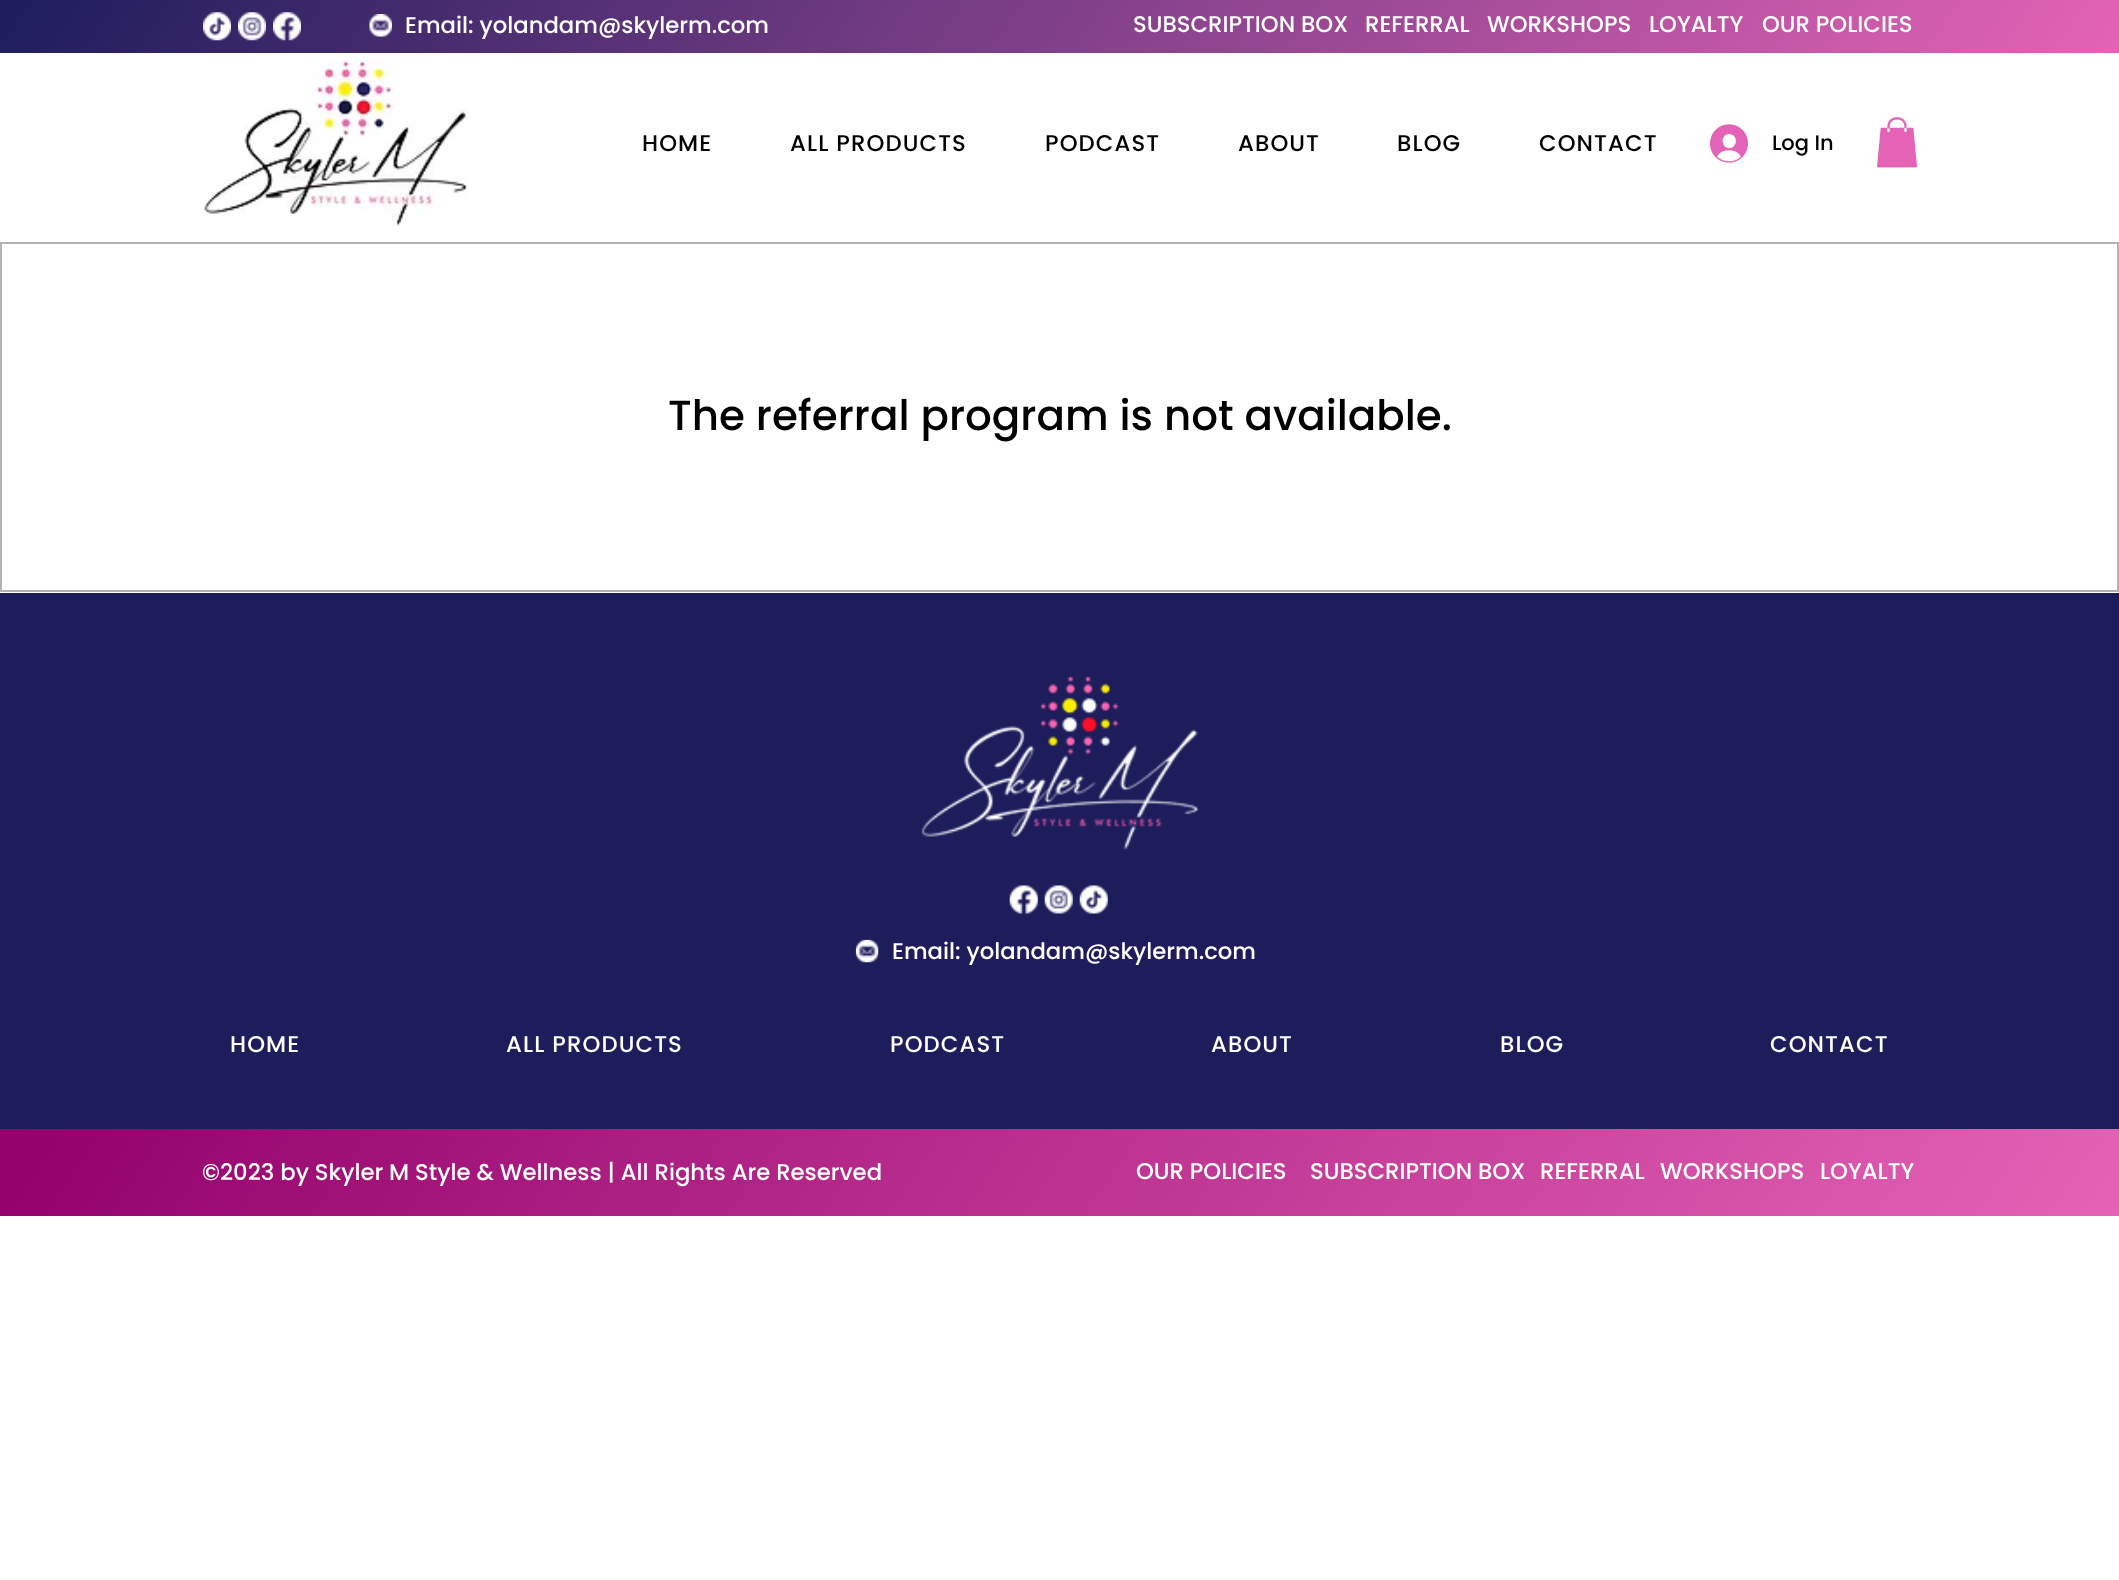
<svg xmlns="http://www.w3.org/2000/svg" xmlns:xlink="http://www.w3.org/1999/xlink" width="2119" height="1580" viewBox="0 0 2119 1580">
<style>
.cls-1{font:500 22.75px Poppins;fill:#ffffff}
.cls-2{font:500 22.75px Poppins;letter-spacing:1.1px;fill:#000000}
.cls-3{font:500 21px Poppins;fill:#000000}
.cls-4{font:500 42px Poppins;fill:#000000}
.cls-5{font:500 22.75px Poppins;letter-spacing:1.1px;fill:#ffffff}
</style>
<defs>
<linearGradient id="g1" gradientUnits="userSpaceOnUse" x1="319" y1="-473" x2="1800" y2="526"><stop offset="0" stop-color="#1d1d5c"/><stop offset="1" stop-color="#e463b6"/></linearGradient>
<linearGradient id="g2" gradientUnits="userSpaceOnUse" x1="311" y1="668" x2="1808" y2="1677"><stop offset="0" stop-color="#92006b"/><stop offset="1" stop-color="#e463b6"/></linearGradient>
</defs>
<rect width="100%" height="100%" fill="#ffffff"/>
<rect fill="url(#g1)" x="0" y="0" width="2119" height="53"/>
<image xlink:href="image0.png" x="203" y="12" width="28" height="29"/>
<image xlink:href="image1.png" x="238" y="12" width="28" height="29"/>
<image xlink:href="image2.png" x="273" y="12" width="28" height="29"/>
<image xlink:href="image3.png" x="369" y="14" width="23" height="23"/>
<image xlink:href="image4.png" x="203" y="59" width="265" height="167"/>
<image xlink:href="image5.png" x="1710" y="124" width="38" height="39"/>
<image xlink:href="image6.png" x="1877" y="117" width="40" height="51"/>
<rect fill="none" stroke="#b3b3b3" stroke-width="2" x="1" y="243" width="2117" height="348"/>
<rect fill="#1d1d5c" x="0" y="593" width="2119" height="536"/>
<image xlink:href="image7.png" x="921" y="675" width="278" height="175"/>
<image xlink:href="image8.png" x="1009" y="885" width="29" height="29"/>
<image xlink:href="image9.png" x="1044" y="885" width="29" height="29"/>
<image xlink:href="image10.png" x="1079" y="885" width="29" height="29"/>
<image xlink:href="image11.png" x="855" y="939" width="24" height="24"/>
<rect fill="url(#g2)" x="0" y="1129" width="2119" height="87"/>
<text class="cls-1" x="405" y="33">Email: yolandam@skylerm.com</text>
<text class="cls-1" x="1133" y="32">SUBSCRIPTION BOX</text>
<text class="cls-1" x="1365" y="32">REFERRAL</text>
<text class="cls-1" x="1487" y="32">WORKSHOPS</text>
<text class="cls-1" x="1649" y="32">LOYALTY</text>
<text class="cls-1" x="1762" y="32">OUR POLICIES</text>
<text class="cls-2" x="642" y="151">HOME</text>
<text class="cls-2" x="790" y="151">ALL PRODUCTS</text>
<text class="cls-2" x="1045" y="151">PODCAST</text>
<text class="cls-2" x="1238" y="151">ABOUT</text>
<text class="cls-2" x="1397" y="151">BLOG</text>
<text class="cls-2" x="1539" y="151">CONTACT</text>
<text class="cls-3" x="1772" y="150">Log In</text>
<text class="cls-4" x="668" y="430">The referral program is not available.</text>
<text class="cls-1" x="892" y="959">Email: yolandam@skylerm.com</text>
<text class="cls-5" x="230" y="1052">HOME</text>
<text class="cls-5" x="506" y="1052">ALL PRODUCTS</text>
<text class="cls-5" x="890" y="1052">PODCAST</text>
<text class="cls-5" x="1211" y="1052">ABOUT</text>
<text class="cls-5" x="1500" y="1052">BLOG</text>
<text class="cls-5" x="1770" y="1052">CONTACT</text>
<text class="cls-1" x="202" y="1180">©2023 by Skyler M Style &amp; Wellness | All Rights Are Reserved</text>
<text class="cls-1" x="1136" y="1179">OUR POLICIES</text>
<text class="cls-1" x="1310" y="1179">SUBSCRIPTION BOX</text>
<text class="cls-1" x="1540" y="1179">REFERRAL</text>
<text class="cls-1" x="1660" y="1179">WORKSHOPS</text>
<text class="cls-1" x="1820" y="1179">LOYALTY</text>
</svg>
